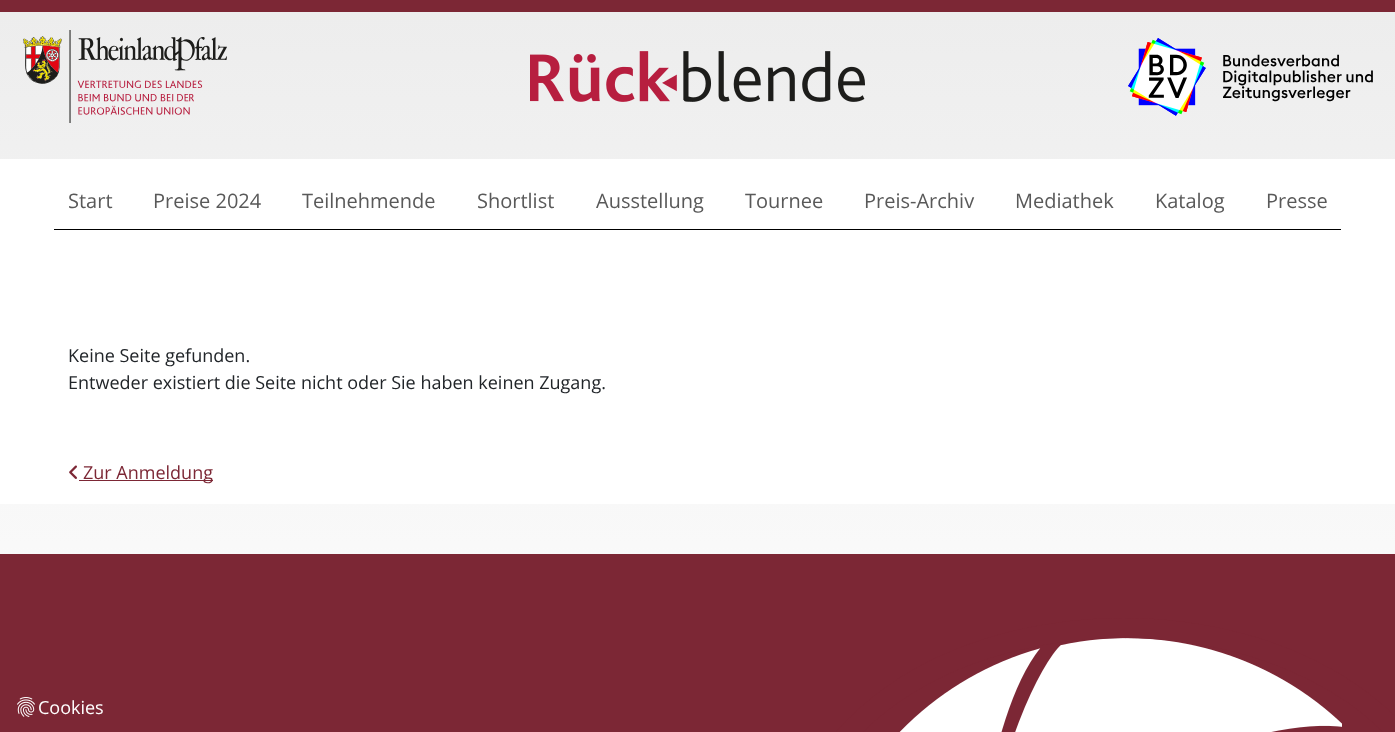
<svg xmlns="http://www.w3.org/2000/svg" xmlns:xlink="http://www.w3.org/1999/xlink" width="1395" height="732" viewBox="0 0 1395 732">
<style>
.cls-1{font:20px Open Sans;fill:#595959}
.cls-2{font:18px Open Sans;fill:#212529}
.cls-3{font:18px Open Sans;fill:#7c2735}
.cls-4{font:18px Open Sans;fill:#ffffff}
</style>
<defs>
<linearGradient id="g1" gradientUnits="userSpaceOnUse" x1="698" y1="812" x2="698" y2="12"><stop offset="0" stop-color="#ffffff"/><stop offset="1" stop-color="#ededed"/></linearGradient>
</defs>
<rect width="100%" height="100%" fill="#7c2735"/>
<rect fill="url(#g1)" x="0" y="12" width="1395" height="542"/>
<image xlink:href="image0.png" x="23" y="30" width="204" height="93"/>
<image xlink:href="image1.png" x="530" y="51" width="335" height="51"/>
<image xlink:href="image2.png" x="1128" y="38" width="245" height="78"/>
<rect fill="#ffffff" x="0" y="159" width="1395" height="345"/>
<rect fill="#000000" x="54" y="229" width="1287" height="1"/>
<image xlink:href="image3.png" x="69" y="465" width="8" height="14"/>
<rect fill="#7c2735" x="79" y="480" width="134" height="1"/>
<image xlink:href="image4.png" x="17" y="697" width="18" height="20"/>
<image xlink:href="image5.png" x="899" y="638" width="443" height="94"/>
<rect fill="none" stroke="#7c2735" stroke-width="20" x="799" y="628" width="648" height="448" rx="324"/>
<text class="cls-1" x="68" y="208">Start</text>
<text class="cls-1" x="153" y="208">Preise 2024</text>
<text class="cls-1" x="302" y="208">Teilnehmende</text>
<text class="cls-1" x="477" y="208">Shortlist</text>
<text class="cls-1" x="596" y="208">Ausstellung</text>
<text class="cls-1" x="745" y="208">Tournee</text>
<text class="cls-1" x="864" y="208">Preis-Archiv</text>
<text class="cls-1" x="1015" y="208">Mediathek</text>
<text class="cls-1" x="1155" y="208">Katalog</text>
<text class="cls-1" x="1266" y="208">Presse</text>
<text class="cls-2"><tspan x="68" y="362">Keine Seite gefunden.</tspan><tspan x="68" y="389">Entweder existiert die Seite nicht oder Sie haben keinen Zugang.</tspan></text>
<text class="cls-3" x="83" y="479">Zur Anmeldung</text>
<text class="cls-4" x="38" y="714">Cookies</text>
</svg>
